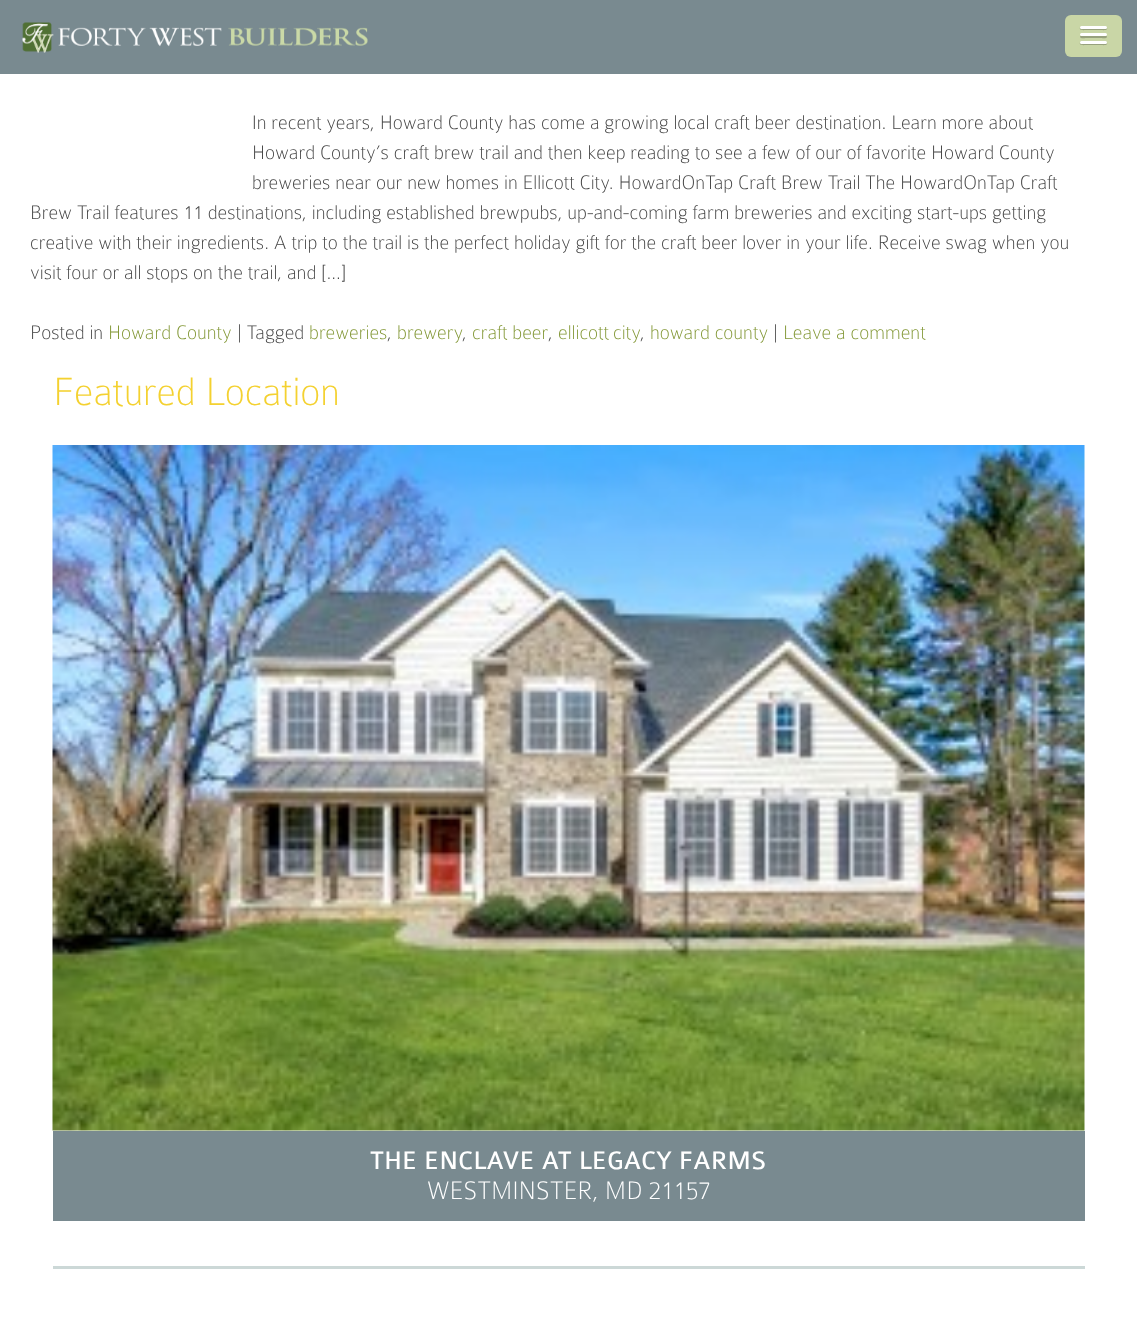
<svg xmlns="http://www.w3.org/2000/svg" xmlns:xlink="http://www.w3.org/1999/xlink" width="1137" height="1338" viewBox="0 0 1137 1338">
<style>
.cls-1{font:100 21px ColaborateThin;fill:#444444}
.cls-2{font:100 21px ColaborateThin;fill:#829735}
.cls-3{font:100 42px ColaborateThin;fill:#f4d130}
.cls-4{font:27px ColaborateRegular;fill:#ffffff}
.cls-5{font:100 27px ColaborateThin;fill:#ffffff}
</style>
<rect width="100%" height="100%" fill="#ffffff"/>
<rect fill="#798a90" x="0" y="0" width="1137" height="74"/>
<rect fill="#c9d6a6" x="1065" y="15" width="57" height="42" rx="6"/>
<path fill="#97a17d" d="M1080 27.5C1078.5 31 1085.5 30 1085.5 30H1101.5C1101.5 30 1108.5 31 1107 27.5C1106.5 28 1106 28.5 1105.5 28.5H1081.5C1081 28.5 1080.5 28 1080 27.5Z"/>
<rect fill="#ffffff" x="1080" y="26" width="27" height="3" rx="1.5"/>
<path fill="#97a17d" d="M1080.5 35.5L1080 37C1080.5 39 1085 38 1085.5 38H1101.5C1102 38 1106.5 39 1107 37L1106.5 35.5L1105.5 36H1081.5Z"/>
<rect fill="#ffffff" x="1080" y="33" width="27" height="3" rx="1.5"/>
<path fill="#97a17d" d="M1080 42.5C1078.5 46 1085.5 45 1085.5 45H1101.5C1101.5 45 1108.5 46 1107 42.5C1106.5 43 1106 43.5 1105.5 43.5H1081.5C1081 43.5 1080.5 43 1080 42.5Z"/>
<rect fill="#ffffff" x="1080" y="41" width="27" height="3" rx="1.5"/>
<image xlink:href="image0.png" x="22" y="22" width="346" height="31"/>
<rect fill="#ccd8d7" x="53" y="1266" width="1032" height="3"/>
<image xlink:href="image1.png" x="52" y="445" width="1033" height="686"/>
<rect fill="#798a90" x="53" y="1131" width="1032" height="90"/>
<text class="cls-1"><tspan x="252" y="129">In recent years, Howard County has come a growing local craft beer destination. Learn more about</tspan><tspan x="252" y="159">Howard County’s craft brew trail and then keep reading to see a few of our of favorite Howard County</tspan><tspan x="252" y="189">breweries near our new homes in Ellicott City. HowardOnTap Craft Brew Trail The HowardOnTap Craft</tspan></text>
<text class="cls-1"><tspan x="30" y="219">Brew Trail features 11 destinations, including established brewpubs, up-and-coming farm breweries and exciting start-ups getting</tspan><tspan x="30" y="249">creative with their ingredients. A trip to the trail is the perfect holiday gift for the craft beer lover in your life. Receive swag when you</tspan><tspan x="30" y="279">visit four or all stops on the trail, and [...]</tspan></text>
<text class="cls-1" x="30" y="339">Posted in</text>
<text class="cls-2" x="108" y="339">Howard County</text>
<text class="cls-1" x="237" y="339">| Tagged</text>
<text class="cls-2" x="309" y="339">breweries</text>
<text class="cls-1" x="387" y="339">,</text>
<text class="cls-2" x="397" y="339">brewery</text>
<text class="cls-1" x="462" y="339">,</text>
<text class="cls-2" x="472" y="339">craft beer</text>
<text class="cls-1" x="548" y="339">,</text>
<text class="cls-2" x="558" y="339" word-spacing="-1">ellicott city</text>
<text class="cls-1" x="640" y="339">,</text>
<text class="cls-2" x="650" y="339">howard county</text>
<text class="cls-1" x="773" y="339">|</text>
<text class="cls-2" x="783" y="339">Leave a comment</text>
<text class="cls-3" x="53" y="405">Featured Location</text>
<text class="cls-4" x="370" y="1169">THE ENCLAVE AT LEGACY FARMS</text>
<text class="cls-5" x="427" y="1199">WESTMINSTER, MD 21157</text>
</svg>
